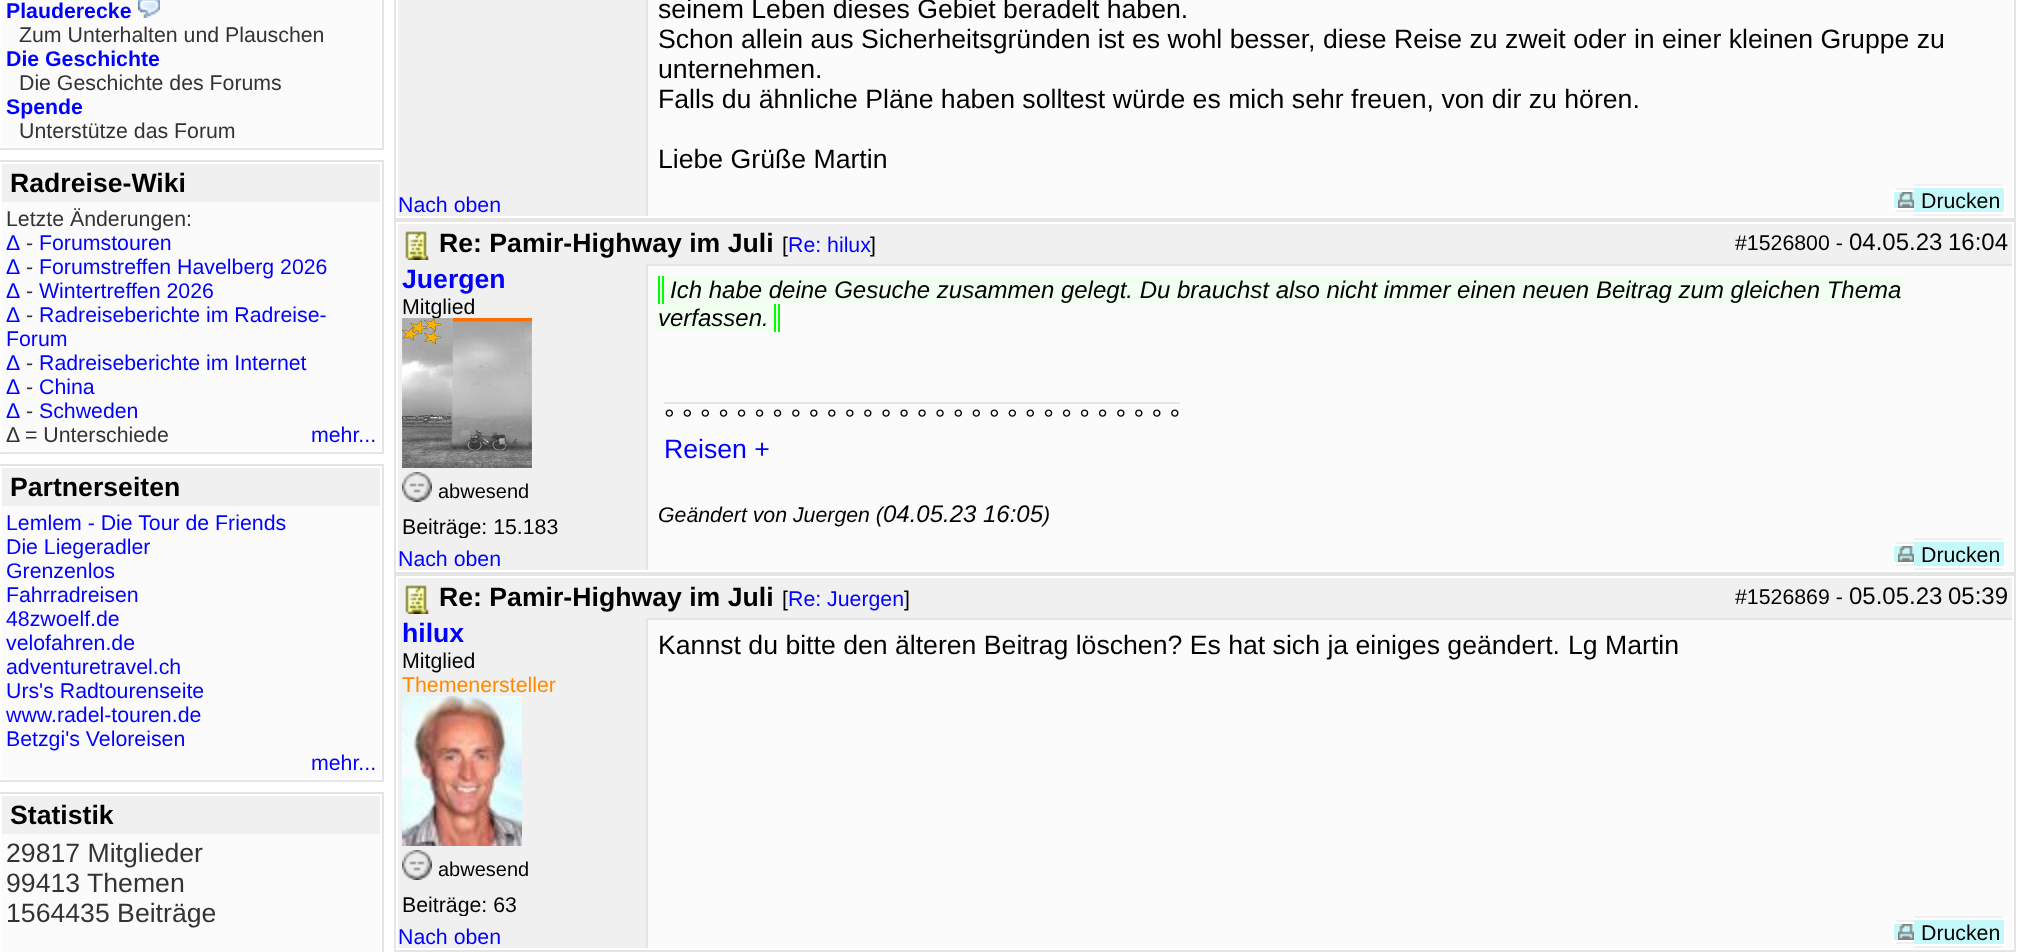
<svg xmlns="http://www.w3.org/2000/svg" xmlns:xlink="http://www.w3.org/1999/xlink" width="2026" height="952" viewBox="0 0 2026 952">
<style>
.cls-1{font:bold 21.3px Liberation Sans;fill:#0000ff}
.cls-2{font:21.3px Liberation Sans;fill:#333333}
.cls-3{font:bold 26.65px Liberation Sans;fill:#000000}
.cls-4{font:21.3px Liberation Sans;fill:#0000ff}
.cls-5{font:26.65px Liberation Sans;fill:#333333}
.cls-6{font:26.65px Liberation Sans;fill:#000000}
.cls-7{font:21.3px Liberation Sans;fill:#000000}
.cls-8{font:24px Liberation Sans;fill:#000000}
.cls-9{font:bold 26.65px Liberation Sans;fill:#0000ff}
.cls-10{font:20px Liberation Sans;fill:#000000}
.cls-11{font:italic 24px Liberation Sans;fill:#000000}
.cls-12{font:26.65px Liberation Sans;fill:#0000ff}
.cls-13{font:italic 21.3px Liberation Sans;fill:#000000}
.cls-14{font:21.3px Liberation Sans;fill:#ff8a00}
</style>
<defs>
<clipPath id="clip1"><rect x="402" y="264" width="240" height="274"/></clipPath>
<clipPath id="clip2"><rect x="402" y="618" width="240" height="298"/></clipPath>
</defs>
<rect width="100%" height="100%" fill="#ffffff"/>
<rect fill="#e5e5e5" x="382" y="0" width="2" height="150"/>
<rect fill="#e5e5e5" x="0" y="148" width="384" height="2"/>
<rect fill="#fbfbfb" x="2" y="0" width="378" height="146"/>
<image xlink:href="image0.png" x="138" y="0" width="22" height="18"/>
<rect fill="#e5e5e5" x="0" y="160" width="384" height="2"/>
<rect fill="#e5e5e5" x="382" y="160" width="2" height="294"/>
<rect fill="#e5e5e5" x="0" y="452" width="384" height="2"/>
<rect fill="#f0f0f0" x="2" y="164" width="378" height="38"/>
<rect fill="#fbfbfb" x="2" y="202" width="378" height="248"/>
<rect fill="#e5e5e5" x="0" y="464" width="384" height="2"/>
<rect fill="#e5e5e5" x="382" y="464" width="2" height="318"/>
<rect fill="#e5e5e5" x="0" y="780" width="384" height="2"/>
<rect fill="#f0f0f0" x="2" y="468" width="378" height="38"/>
<rect fill="#fbfbfb" x="2" y="506" width="378" height="272"/>
<rect fill="#e5e5e5" x="0" y="792" width="384" height="2"/>
<rect fill="#e5e5e5" x="382" y="792" width="2" height="160"/>
<rect fill="#f0f0f0" x="2" y="796" width="378" height="38"/>
<rect fill="#fbfbfb" x="2" y="834" width="378" height="118"/>
<rect fill="none" stroke="#e5e5e5" stroke-width="2" x="395" y="-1" width="1620" height="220"/>
<rect fill="#f0f0f0" x="398" y="0" width="248" height="216"/>
<rect fill="#fbfbfb" x="648" y="0" width="1364" height="216"/>
<rect fill="#e5e5e5" x="646" y="0" width="2" height="216"/>
<rect fill="#f0f0f0" x="1896" y="188" width="18" height="2"/>
<rect fill="#f0f0f0" x="1896" y="210" width="18" height="2"/>
<rect fill="#f0f0f0" x="1896" y="188" width="2" height="24"/>
<rect fill="#c5f9f9" x="1894" y="192" width="20" height="16"/>
<image xlink:href="image1.png" x="1898" y="192" width="16" height="16"/>
<rect fill="#f0f0f0" x="1914" y="184" width="88" height="2"/>
<rect fill="#f0f0f0" x="1914" y="214" width="88" height="2"/>
<rect fill="#ffffff" x="1892" y="190" width="22" height="2"/>
<rect fill="#ffffff" x="1892" y="208" width="22" height="2"/>
<rect fill="#ffffff" x="1892" y="190" width="2" height="20"/>
<rect fill="#c5f9f9" x="1914" y="188" width="90" height="24"/>
<rect fill="#ffffff" x="1914" y="186" width="92" height="2"/>
<rect fill="#ffffff" x="2004" y="186" width="2" height="28"/>
<rect fill="#ffffff" x="1914" y="212" width="92" height="2"/>
<rect fill="none" stroke="#e5e5e5" stroke-width="2" x="395" y="221" width="1620" height="352"/>
<rect fill="#f0f0f0" x="398" y="224" width="1614" height="40"/>
<image xlink:href="image2.png" x="405" y="231" width="24" height="29"/>
<rect fill="#f0f0f0" x="398" y="264" width="248" height="306"/>
<image xlink:href="image4.png" x="402" y="472" width="30" height="30"/>
<rect fill="#fbfbfb" x="648" y="266" width="1364" height="304"/>
<rect fill="#e5e5e5" x="646" y="264" width="1366" height="2"/>
<rect fill="#e5e5e5" x="646" y="264" width="2" height="306"/>
<rect fill="#f0fff0" x="660" y="276" width="1242" height="28"/>
<rect fill="#00ff00" x="658" y="276" width="2" height="28"/>
<rect fill="#00ff00" x="662" y="276" width="2" height="28"/>
<rect fill="#f0fff0" x="658" y="304" width="120" height="28"/>
<rect fill="#00ff00" x="774" y="304" width="2" height="28"/>
<rect fill="#00ff00" x="778" y="304" width="2" height="28"/>
<rect fill="#e5e5e5" x="664" y="402" width="516" height="2"/>
<rect fill="#f0f0f0" x="1896" y="542" width="18" height="2"/>
<rect fill="#f0f0f0" x="1896" y="564" width="18" height="2"/>
<rect fill="#f0f0f0" x="1896" y="542" width="2" height="24"/>
<rect fill="#c5f9f9" x="1894" y="546" width="20" height="16"/>
<image xlink:href="image1.png" x="1898" y="546" width="16" height="16"/>
<rect fill="#f0f0f0" x="1914" y="538" width="88" height="2"/>
<rect fill="#f0f0f0" x="1914" y="568" width="88" height="2"/>
<rect fill="#ffffff" x="1892" y="544" width="22" height="2"/>
<rect fill="#ffffff" x="1892" y="562" width="22" height="2"/>
<rect fill="#ffffff" x="1892" y="544" width="2" height="20"/>
<rect fill="#c5f9f9" x="1914" y="542" width="90" height="24"/>
<rect fill="#ffffff" x="1914" y="540" width="92" height="2"/>
<rect fill="#ffffff" x="2004" y="540" width="2" height="28"/>
<rect fill="#ffffff" x="1914" y="566" width="92" height="2"/>
<rect fill="none" stroke="#e5e5e5" stroke-width="2" x="395" y="575" width="1620" height="376"/>
<rect fill="#f0f0f0" x="398" y="578" width="1614" height="40"/>
<image xlink:href="image2.png" x="405" y="585" width="24" height="29"/>
<rect fill="#f0f0f0" x="398" y="618" width="248" height="330"/>
<image xlink:href="image5.png" x="402" y="696" width="120" height="150"/>
<image xlink:href="image4.png" x="402" y="850" width="30" height="30"/>
<rect fill="#fbfbfb" x="648" y="620" width="1364" height="328"/>
<rect fill="#e5e5e5" x="646" y="618" width="1366" height="2"/>
<rect fill="#e5e5e5" x="646" y="618" width="2" height="330"/>
<rect fill="#f0f0f0" x="1896" y="920" width="18" height="2"/>
<rect fill="#f0f0f0" x="1896" y="942" width="18" height="2"/>
<rect fill="#f0f0f0" x="1896" y="920" width="2" height="24"/>
<rect fill="#c5f9f9" x="1894" y="924" width="20" height="16"/>
<image xlink:href="image1.png" x="1898" y="924" width="16" height="16"/>
<rect fill="#f0f0f0" x="1914" y="916" width="88" height="2"/>
<rect fill="#f0f0f0" x="1914" y="946" width="88" height="2"/>
<rect fill="#ffffff" x="1892" y="922" width="22" height="2"/>
<rect fill="#ffffff" x="1892" y="940" width="22" height="2"/>
<rect fill="#ffffff" x="1892" y="922" width="2" height="20"/>
<rect fill="#c5f9f9" x="1914" y="920" width="90" height="24"/>
<rect fill="#ffffff" x="1914" y="918" width="92" height="2"/>
<rect fill="#ffffff" x="2004" y="918" width="2" height="28"/>
<rect fill="#ffffff" x="1914" y="944" width="92" height="2"/>
<text class="cls-1" x="6" y="18">Plauderecke</text>
<text class="cls-2" x="19" y="42">Zum Unterhalten und Plauschen</text>
<text class="cls-1" x="6" y="66">Die Geschichte</text>
<text class="cls-2" x="19" y="90">Die Geschichte des Forums</text>
<text class="cls-1" x="6" y="114">Spende</text>
<text class="cls-2" x="19" y="138">Unterstütze das Forum</text>
<text class="cls-3" x="10" y="192">Radreise-Wiki</text>
<text class="cls-2" x="6" y="226">Letzte Änderungen:</text>
<text class="cls-4" x="6" y="250">Δ</text>
<text class="cls-2" x="26" y="250">-</text>
<text class="cls-4" x="39" y="250">Forumstouren</text>
<text class="cls-4" x="6" y="274">Δ</text>
<text class="cls-2" x="26" y="274">-</text>
<text class="cls-4" x="39" y="274">Forumstreffen Havelberg 2026</text>
<text class="cls-4" x="6" y="298">Δ</text>
<text class="cls-2" x="26" y="298">-</text>
<text class="cls-4" x="39" y="298">Wintertreffen 2026</text>
<text class="cls-4" x="6" y="322">Δ</text>
<text class="cls-2" x="26" y="322">-</text>
<text class="cls-4" x="39" y="322">Radreiseberichte im Radreise-</text>
<text class="cls-4"><tspan x="6" y="346">Forum</tspan><tspan x="6" y="370">Δ</tspan></text>
<text class="cls-2" x="26" y="370">-</text>
<text class="cls-4" x="39" y="370">Radreiseberichte im Internet</text>
<text class="cls-4" x="6" y="394">Δ</text>
<text class="cls-2" x="26" y="394">-</text>
<text class="cls-4" x="39" y="394">China</text>
<text class="cls-4" x="6" y="418">Δ</text>
<text class="cls-2" x="26" y="418">-</text>
<text class="cls-4" x="39" y="418">Schweden</text>
<text class="cls-2" x="6" y="442">Δ = Unterschiede</text>
<text class="cls-4" x="311" y="442">mehr...</text>
<text class="cls-3" x="10" y="496">Partnerseiten</text>
<text class="cls-4"><tspan x="6" y="530">Lemlem - Die Tour de Friends</tspan><tspan x="6" y="554">Die Liegeradler</tspan><tspan x="6" y="578">Grenzenlos</tspan><tspan x="6" y="602">Fahrradreisen</tspan><tspan x="6" y="626">48zwoelf.de</tspan><tspan x="6" y="650">velofahren.de</tspan><tspan x="6" y="674">adventuretravel.ch</tspan><tspan x="6" y="698">Urs's Radtourenseite</tspan><tspan x="6" y="722">www.radel-touren.de</tspan><tspan x="6" y="746">Betzgi's Veloreisen</tspan></text>
<text class="cls-4" x="311" y="770">mehr...</text>
<text class="cls-3" x="10" y="824">Statistik</text>
<text class="cls-5"><tspan x="6" y="862">29817 Mitglieder</tspan><tspan x="6" y="892">99413 Themen</tspan><tspan x="6" y="922">1564435 Beiträge</tspan></text>
<text class="cls-6"><tspan x="658" y="18">seinem Leben dieses Gebiet beradelt haben.</tspan><tspan x="658" y="48">Schon allein aus Sicherheitsgründen ist es wohl besser, diese Reise zu zweit oder in einer kleinen Gruppe zu</tspan><tspan x="658" y="78">unternehmen.</tspan><tspan x="658" y="108">Falls du ähnliche Pläne haben solltest würde es mich sehr freuen, von dir zu hören.</tspan></text>
<text class="cls-6" x="658" y="168">Liebe Grüße Martin</text>
<text class="cls-4" x="398" y="212">Nach oben</text>
<text class="cls-7" x="1921" y="208">Drucken</text>
<text class="cls-3" x="439" y="252">Re: Pamir-Highway im Juli</text>
<text class="cls-7" x="782" y="252">[</text>
<text class="cls-4" x="788" y="252">Re: hilux</text>
<text class="cls-7" x="870" y="252">]</text>
<text class="cls-7" x="1735" y="250">#1526800 -</text>
<text class="cls-8" x="1849" y="250">04.05.23</text>
<text class="cls-8" x="1948" y="250">16:04</text>
<text class="cls-9" x="402" y="288">Juergen</text>
<text class="cls-7" x="402" y="314">Mitglied</text>
<image xlink:href="image3.png" x="402" y="318" width="130" height="150"/>
<text class="cls-10" x="438" y="498">abwesend</text>
<g clip-path="url(#clip1)">
<text class="cls-7" x="402" y="534">Beiträge: 15.183</text>
</g>
<text class="cls-11" x="670" y="298">Ich habe deine Gesuche zusammen gelegt. Du brauchst also nicht immer einen neuen Beitrag zum gleichen Thema</text>
<text class="cls-11" x="658" y="326">verfassen.</text>
<text class="cls-6" x="664" y="428">° ° ° ° ° ° ° ° ° ° ° ° ° ° ° ° ° ° ° ° ° ° ° ° ° ° ° ° °</text>
<text class="cls-12" x="664" y="458">Reisen +</text>
<text class="cls-13" x="658" y="522">Geändert von Juergen (</text>
<text class="cls-11" x="883" y="522">04.05.23</text>
<text class="cls-11" x="983" y="522">16:05</text>
<text class="cls-13" x="1043" y="522">)</text>
<text class="cls-4" x="398" y="566">Nach oben</text>
<text class="cls-7" x="1921" y="562">Drucken</text>
<text class="cls-3" x="439" y="606">Re: Pamir-Highway im Juli</text>
<text class="cls-7" x="782" y="606">[</text>
<text class="cls-4" x="788" y="606">Re: Juergen</text>
<text class="cls-7" x="904" y="606">]</text>
<text class="cls-7" x="1735" y="604">#1526869 -</text>
<text class="cls-8" x="1849" y="604">05.05.23</text>
<text class="cls-8" x="1948" y="604">05:39</text>
<text class="cls-9" x="402" y="642">hilux</text>
<text class="cls-7" x="402" y="668">Mitglied</text>
<text class="cls-14" x="402" y="692">Themenersteller</text>
<text class="cls-10" x="438" y="876">abwesend</text>
<g clip-path="url(#clip2)">
<text class="cls-7" x="402" y="912">Beiträge: 63</text>
</g>
<text class="cls-6" x="658" y="654">Kannst du bitte den älteren Beitrag löschen? Es hat sich ja einiges geändert.</text>
<text class="cls-6" x="1568" y="654">Lg Martin</text>
<text class="cls-4" x="398" y="944">Nach oben</text>
<text class="cls-7" x="1921" y="940">Drucken</text>
</svg>
